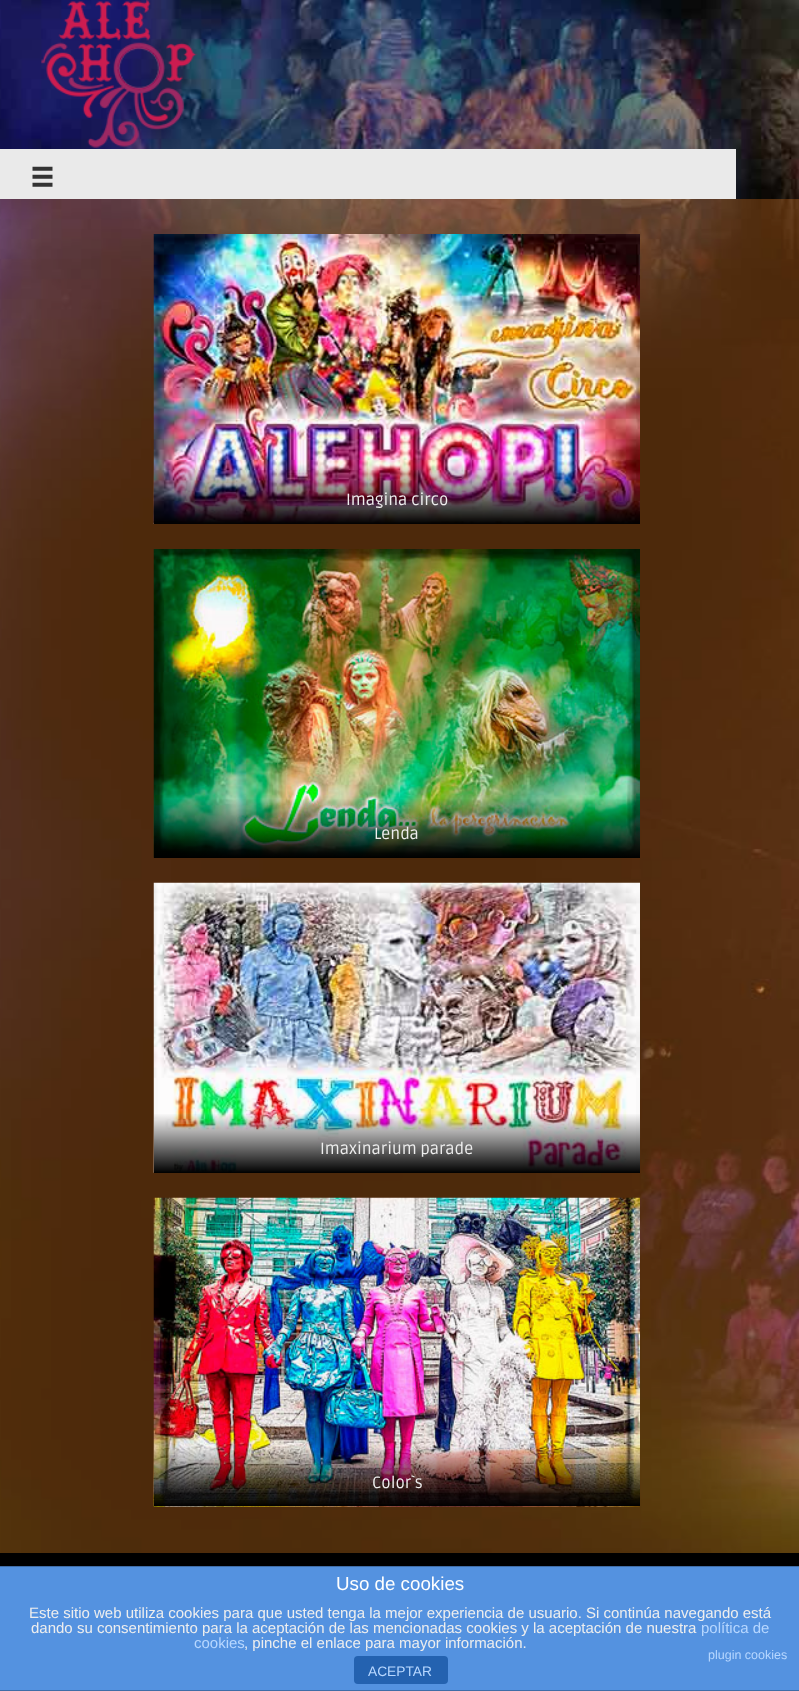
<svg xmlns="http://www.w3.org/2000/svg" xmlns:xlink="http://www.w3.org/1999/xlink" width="799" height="1691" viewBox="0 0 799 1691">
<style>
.cls-1{font:16.25px Ruda;fill:#eeeeee}
.cls-2{font:18.75px Liberation Sans;fill:#ffffff}
.cls-3{font:15px Liberation Sans;fill:#eeeeee}
.cls-4{font:15px Liberation Sans;fill:#b7d7ff}
.cls-5{font:12.5px Liberation Sans;fill:#b7d7ff}
.cls-6{font:13.75px Liberation Sans;fill:#b7d7ff}
</style>
<defs>
<linearGradient id="g1" gradientUnits="userSpaceOnUse" x1="397" y1="798" x2="397" y2="858"><stop offset="0" stop-color="#000000" stop-opacity="0"/><stop offset="1" stop-color="#000000"/></linearGradient>
<linearGradient id="g2" gradientUnits="userSpaceOnUse" x1="397" y1="1113" x2="397" y2="1173"><stop offset="0" stop-color="#000000" stop-opacity="0"/><stop offset="1" stop-color="#000000"/></linearGradient>
</defs>
<rect width="100%" height="100%" fill="#ffffff"/>
<image xlink:href="image0.png" x="0" y="0" width="799" height="1553"/>
<image xlink:href="image1.png" x="41" y="0" width="157" height="148"/>
<rect fill="#eaeaea" x="0" y="149" width="736" height="50"/>
<image xlink:href="image2.png" x="32" y="166" width="21" height="21"/>
<rect fill="#e27821" fill-opacity="0.34" x="0" y="199" width="799" height="1354"/>
<image xlink:href="image3.png" x="153" y="234" width="487" height="290"/>
<image xlink:href="image4.png" x="153" y="549" width="487" height="309"/>
<rect fill="url(#g1)" x="154" y="799" width="486" height="59"/>
<image xlink:href="image5.png" x="153" y="882" width="487" height="291"/>
<rect fill="url(#g2)" x="154" y="1114" width="486" height="59"/>
<image xlink:href="image6.png" x="153" y="1197" width="487" height="310"/>
<rect fill="#000000" x="0" y="1553" width="799" height="13"/>
<rect fill="#5492e0" x="0" y="1567" width="799" height="123"/>
<rect fill="#3f6da7" x="0" y="1566" width="799" height="1"/>
<rect fill="#3f6da7" x="0" y="1690" width="799" height="1"/>
<rect fill="#2462b0" x="354" y="1656" width="94" height="28" rx="4"/>
<text class="cls-1" x="346" y="505">Imagina circo</text>
<text class="cls-1" x="374" y="839">Lenda</text>
<text class="cls-1" x="320" y="1154">Imaxinarium parade</text>
<text class="cls-1" x="372" y="1488">Color`s</text>
<text class="cls-2" x="336" y="1590">Uso de cookies</text>
<text class="cls-3" x="29" y="1618">Este sitio web utiliza cookies para que usted tenga la mejor experiencia de usuario. Si continúa navegando está</text>
<text class="cls-3" x="31" y="1633">dando su consentimiento para la aceptación de las mencionadas cookies y la aceptación de nuestra</text>
<text class="cls-4" x="701" y="1633">política de</text>
<text class="cls-4" x="194" y="1648">cookies</text>
<text class="cls-3" x="244" y="1648">, pinche el enlace para mayor información.</text>
<text class="cls-5" x="708" y="1659">plugin cookies</text>
<text class="cls-6" x="368" y="1676">ACEPTAR</text>
</svg>
